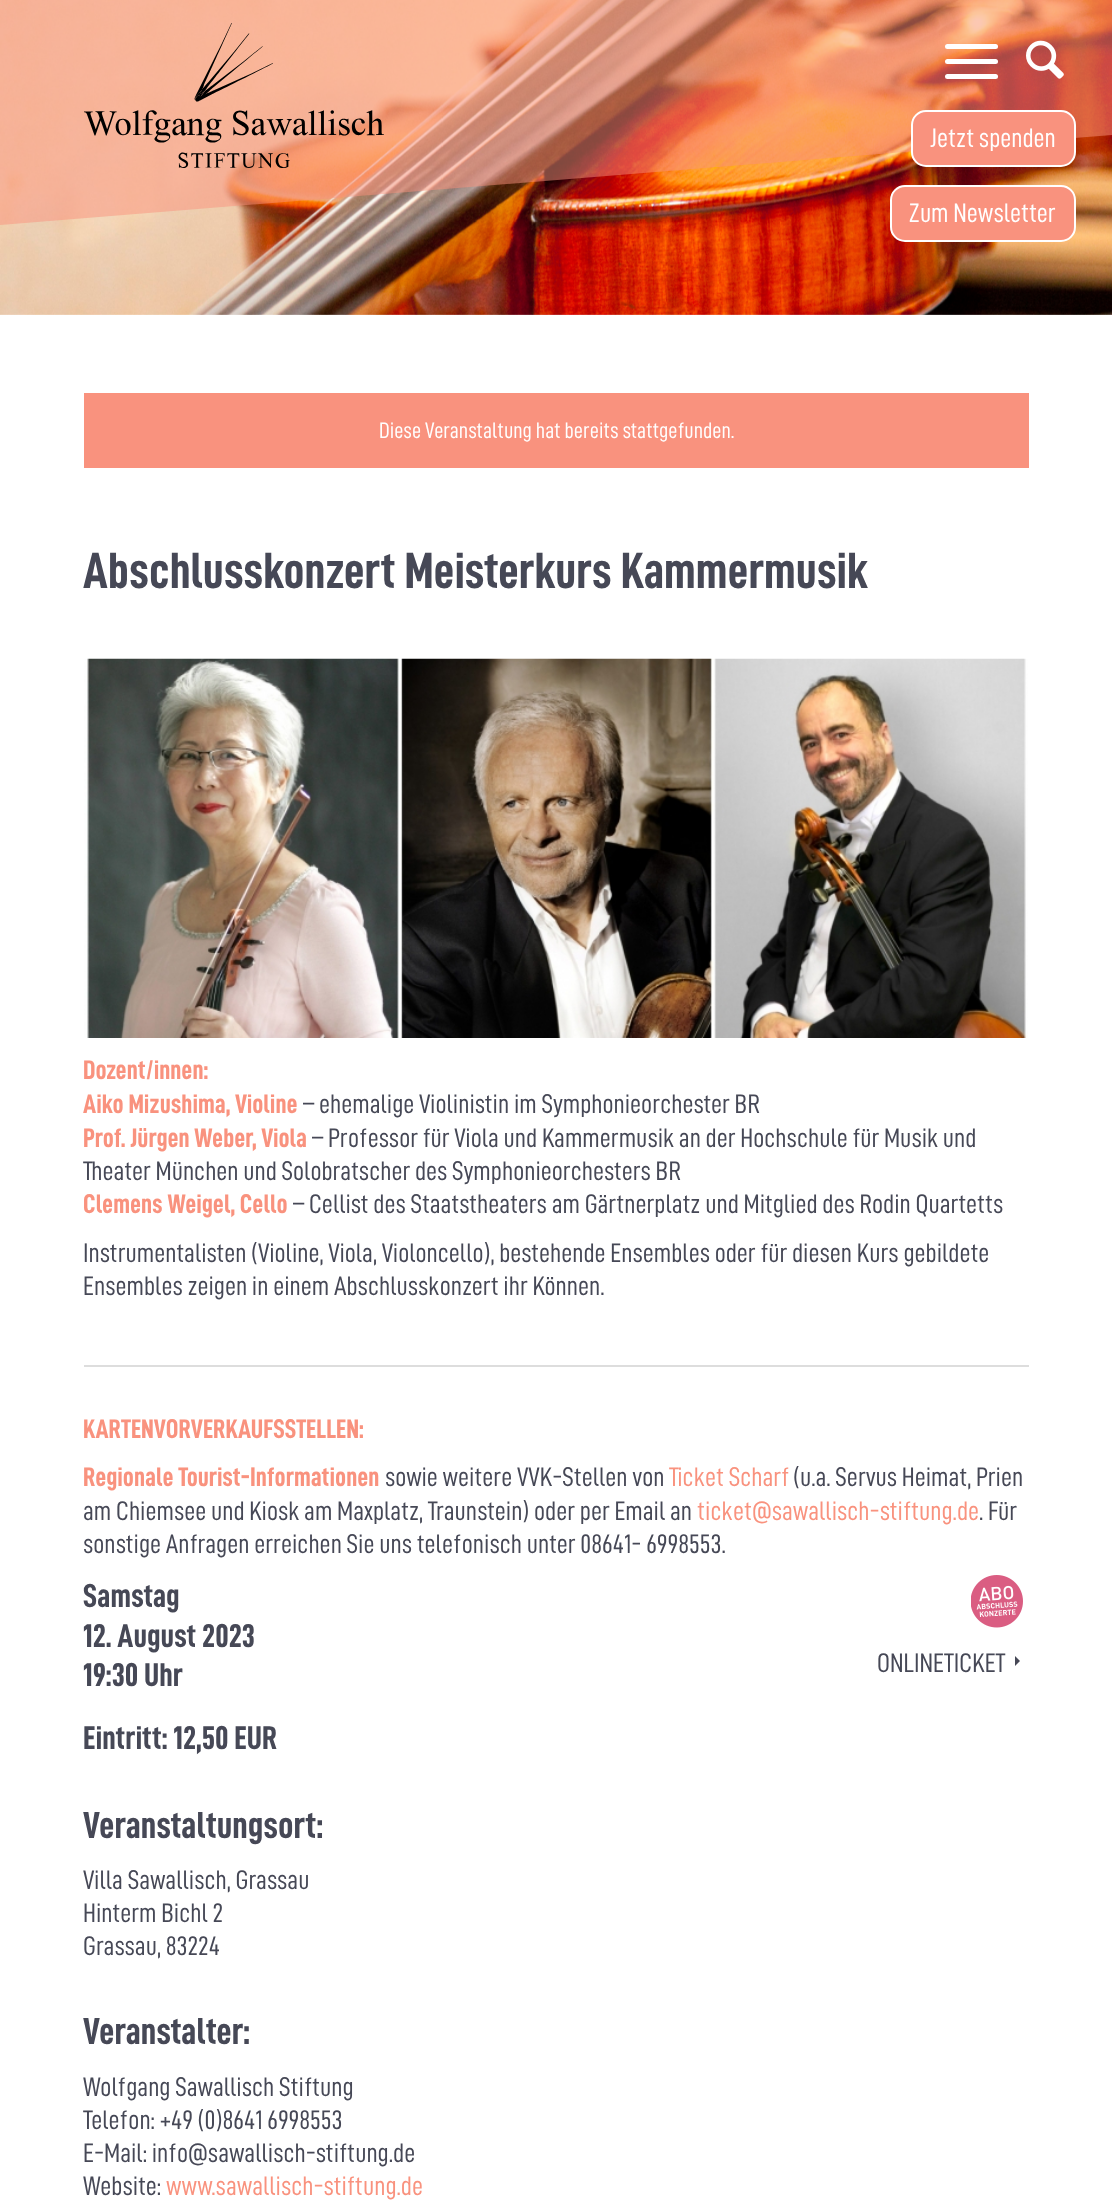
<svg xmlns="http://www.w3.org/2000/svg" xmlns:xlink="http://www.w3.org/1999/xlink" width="1112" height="2211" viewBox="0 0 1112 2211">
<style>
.cls-1{font:27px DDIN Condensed;fill:#ffffff}
.cls-2{font:22.5px DDIN Condensed;fill:#ffffff}
.cls-3{font:bold 51px DDIN Condensed;fill:#464856}
.cls-4{font:bold 27px DDIN Condensed;fill:#f9927e}
.cls-5{font:27px DDIN Condensed;fill:#464856}
.cls-6{font:27px DDIN Condensed;fill:#f9927e}
.cls-7{font:bold 33px DDIN Condensed;fill:#464856}
.cls-8{font:bold 37.75px DDIN Condensed;fill:#464856}
</style>
<rect width="100%" height="100%" fill="#ffffff"/>
<image xlink:href="image0.png" x="0" y="0" width="1112" height="315"/>
<rect fill="#f9927e" fill-opacity="0.5" x="0" y="0" width="1112" height="135"/>
<path fill="#f9927e" fill-opacity="0.5" d="M0 135V225L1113 135Z"/>
<image xlink:href="image1.png" x="84" y="23" width="300" height="145"/>
<rect fill="#ffffff" x="945" y="59" width="53" height="5" rx="2.5"/>
<rect fill="#ffffff" x="945" y="44" width="53" height="5" rx="2.5"/>
<rect fill="#ffffff" x="945" y="74" width="53" height="5" rx="2.5"/>
<image xlink:href="image2.png" x="1026" y="40" width="38" height="39"/>
<rect fill="#f9927e" stroke="#ffffff" stroke-width="2" x="912" y="111" width="163" height="55" rx="14"/>
<rect fill="#f9927e" stroke="#ffffff" stroke-width="2" x="891" y="186" width="184" height="55" rx="14"/>
<rect fill="#f9927e" x="84" y="393" width="945" height="75"/>
<image xlink:href="image3.png" x="84" y="658" width="944" height="380"/>
<rect fill="#dddddd" x="84" y="1365" width="945" height="2"/>
<image xlink:href="image4.png" x="971" y="1575" width="52" height="53"/>
<path fill="#464856" d="M1015 1656L1020 1661L1015 1666Z"/>
<text class="cls-1" x="930" y="147">Jetzt spenden</text>
<text class="cls-1" x="909" y="222">Zum Newsletter</text>
<text class="cls-2" x="379" y="438">Diese Veranstaltung hat bereits stattgefunden.</text>
<text class="cls-3" x="83" y="588">Abschlusskonzert Meisterkurs Kammermusik</text>
<text class="cls-4"><tspan x="83" y="1079">Dozent/innen:</tspan><tspan x="83" y="1113">Aiko Mizushima, Violine</tspan></text>
<text class="cls-5" x="303" y="1113">– ehemalige Violinistin im Symphonieorchester BR</text>
<text class="cls-4" x="83" y="1147">Prof. Jürgen Weber, Viola</text>
<text class="cls-5" x="312" y="1147">– Professor für Viola und Kammermusik an der Hochschule für Musik und</text>
<text class="cls-5" x="83" y="1180">Theater München und Solobratscher des Symphonieorchesters BR</text>
<text class="cls-4" x="83" y="1213">Clemens Weigel, Cello</text>
<text class="cls-5" x="293" y="1213">– Cellist des Staatstheaters am Gärtnerplatz und Mitglied des Rodin Quartetts</text>
<text class="cls-5"><tspan x="83" y="1262">Instrumentalisten (Violine, Viola, Violoncello), bestehende Ensembles oder für diesen Kurs gebildete</tspan><tspan x="83" y="1295">Ensembles zeigen in einem Abschlusskonzert ihr Können.</tspan></text>
<text class="cls-4"><tspan x="83" y="1438">KARTENVORVERKAUFSSTELLEN:</tspan><tspan x="83" y="1486">Regionale Tourist-Informationen</tspan></text>
<text class="cls-5" x="385" y="1486">sowie weitere VVK-Stellen von</text>
<text class="cls-6" x="669" y="1486">Ticket Scharf</text>
<text class="cls-5" x="793" y="1486">(u.a. Servus Heimat, Prien</text>
<text class="cls-5" x="83" y="1520">am Chiemsee und Kiosk am Maxplatz, Traunstein) oder per Email an</text>
<text class="cls-6" x="697" y="1520">ticket@sawallisch-stiftung.de</text>
<text class="cls-5" x="979" y="1520">. Für</text>
<text class="cls-5" x="83" y="1553">sonstige Anfragen erreichen Sie uns telefonisch unter 08641- 6998553.</text>
<text class="cls-7"><tspan x="83" y="1607">Samstag</tspan><tspan x="83" y="1647">12. August 2023</tspan><tspan x="83" y="1686">19:30 Uhr</tspan></text>
<text class="cls-5" x="877" y="1672">ONLINETICKET</text>
<text class="cls-7" x="83" y="1749">Eintritt: 12,50 EUR</text>
<text class="cls-8" x="83" y="1838">Veranstaltungsort:</text>
<text class="cls-5"><tspan x="83" y="1889">Villa Sawallisch, Grassau</tspan><tspan x="83" y="1922">Hinterm Bichl 2</tspan><tspan x="83" y="1955">Grassau, 83224</tspan></text>
<text class="cls-8" x="83" y="2044">Veranstalter:</text>
<text class="cls-5"><tspan x="83" y="2096">Wolfgang Sawallisch Stiftung</tspan><tspan x="83" y="2129">Telefon: +49 (0)8641 6998553</tspan><tspan x="83" y="2162">E-Mail: info@sawallisch-stiftung.de</tspan><tspan x="83" y="2195">Website:</tspan></text>
<text class="cls-6" x="166" y="2195">www.sawallisch-stiftung.de</text>
</svg>
